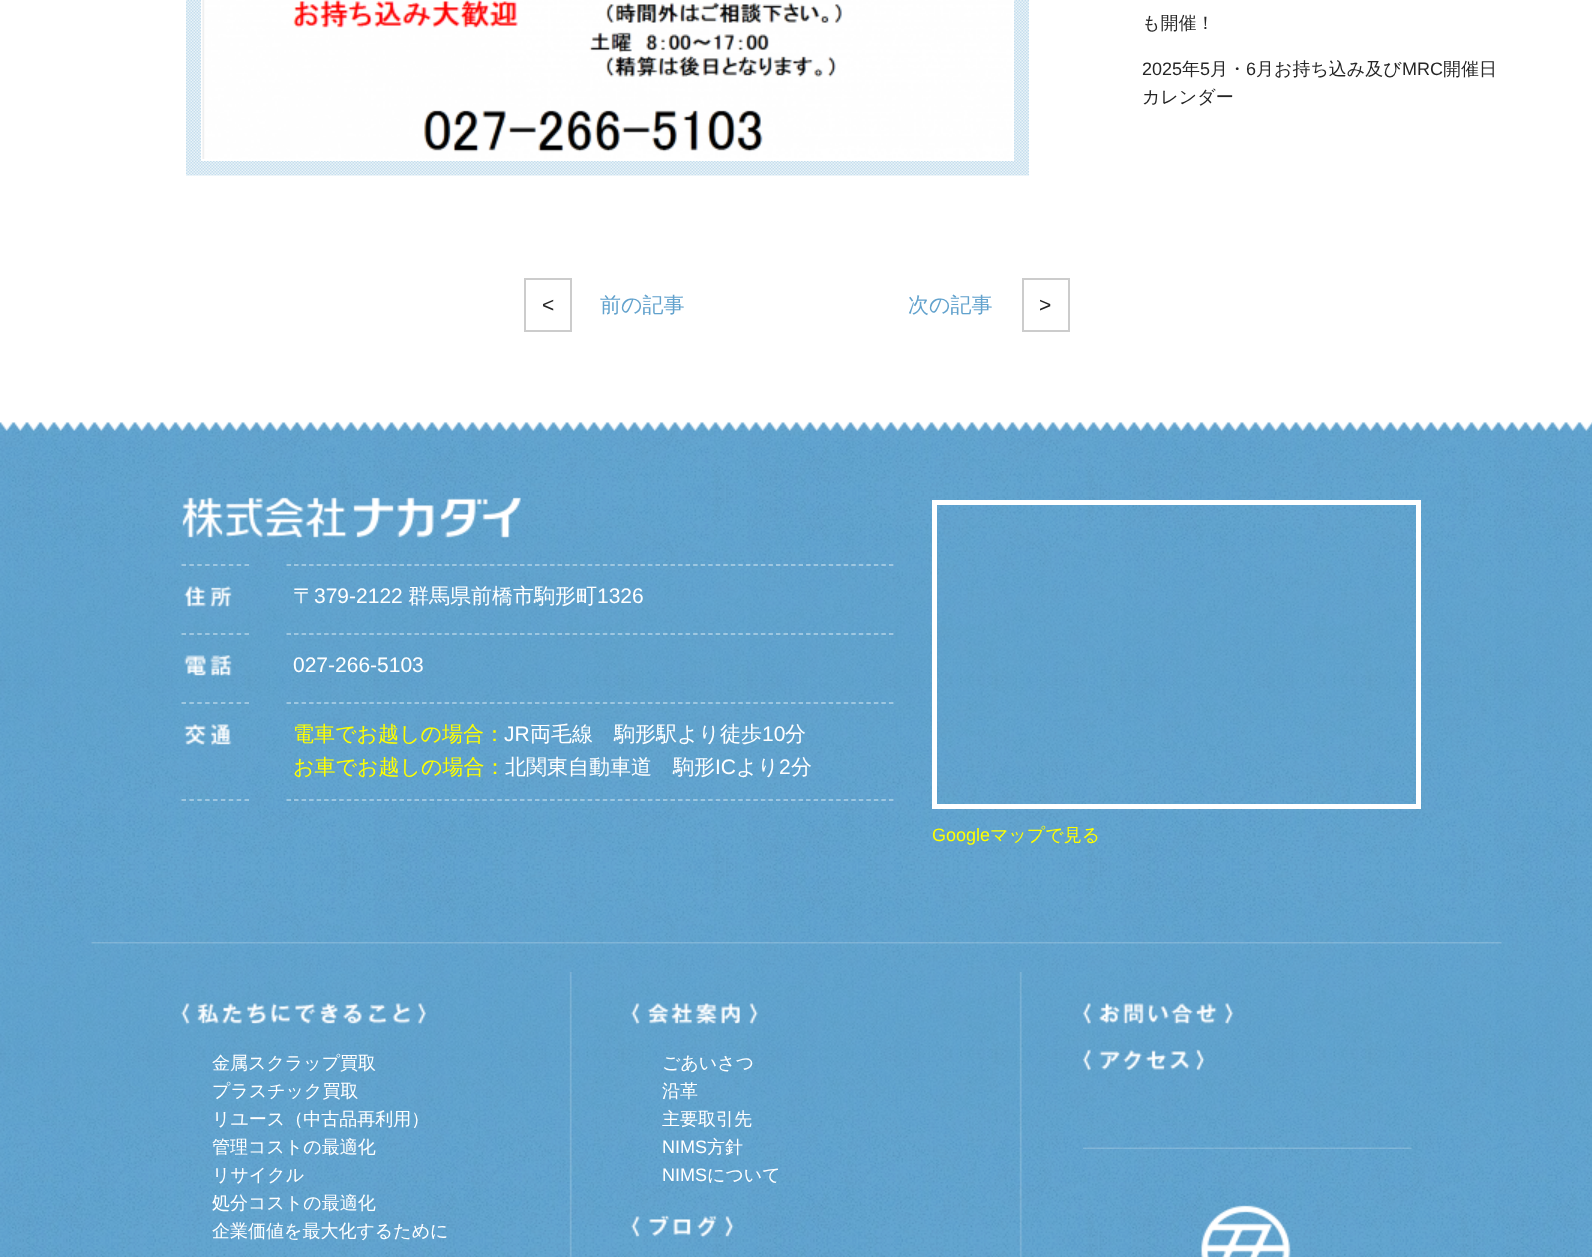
<svg xmlns="http://www.w3.org/2000/svg" xmlns:xlink="http://www.w3.org/1999/xlink" width="1592" height="1257" viewBox="0 0 1592 1257">
<style>
.cls-1{font:500 18px WenQuanYi Zen Hei;fill:#262626}
.cls-2{font:18px Liberation Sans;fill:#262626}
.cls-3{font:21px Liberation Sans;fill:#262626}
.cls-4{font:500 21px WenQuanYi Zen Hei;fill:#62a2cd}
.cls-5{font:500 21px WenQuanYi Zen Hei;fill:#ffffff}
.cls-6{font:21px Liberation Sans;fill:#ffffff}
.cls-7{font:500 21px WenQuanYi Zen Hei;fill:#ffff00}
.cls-8{font:18px Liberation Sans;fill:#ffff00}
.cls-9{font:500 18px WenQuanYi Zen Hei;fill:#ffff00}
.cls-10{font:500 18px WenQuanYi Zen Hei;fill:#ffffff}
.cls-11{font:18px Liberation Sans;fill:#ffffff}
</style>
<rect width="100%" height="100%" fill="#ffffff"/>
<image xlink:href="image0.png" x="0" y="422" width="1592" height="835"/>
<image xlink:href="image1.png" x="186" y="0" width="843" height="176"/>
<rect fill="none" stroke="#ffffff" stroke-width="2" x="202" y="-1" width="811" height="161"/>
<image xlink:href="image2.png" x="202" y="0" width="810" height="159"/>
<rect fill="none" stroke="#cccccc" stroke-width="2" x="525" y="279" width="46" height="52"/>
<rect fill="none" stroke="#cccccc" stroke-width="2" x="1023" y="279" width="46" height="52"/>
<image xlink:href="image3.png" x="0" y="422" width="1592" height="9"/>
<image xlink:href="image4.png" x="182" y="497" width="339" height="41"/>
<path fill="none" stroke="#b2d3e8" stroke-width="1.5" stroke-dasharray="4.5 3.38" d="M181.5 565H249"/>
<image xlink:href="image5.png" x="184" y="586" width="48" height="21"/>
<path fill="none" stroke="#b2d3e8" stroke-width="1.5" stroke-dasharray="4.5 3.03" d="M286.5 565H894"/>
<path fill="none" stroke="#b2d3e8" stroke-width="1.5" stroke-dasharray="4.5 3.38" d="M181.5 634H249"/>
<image xlink:href="image6.png" x="184" y="655" width="48" height="21"/>
<path fill="none" stroke="#b2d3e8" stroke-width="1.5" stroke-dasharray="4.5 3.03" d="M286.5 634H894"/>
<path fill="none" stroke="#b2d3e8" stroke-width="1.5" stroke-dasharray="4.5 3.38" d="M181.5 703H249"/>
<image xlink:href="image7.png" x="184" y="724" width="48" height="22"/>
<path fill="none" stroke="#b2d3e8" stroke-width="1.5" stroke-dasharray="4.5 3.03" d="M286.5 703H894"/>
<path fill="none" stroke="#b2d3e8" stroke-width="1.5" stroke-dasharray="4.5 3.38" d="M181.5 800H249"/>
<path fill="none" stroke="#b2d3e8" stroke-width="1.5" stroke-dasharray="4.5 3.03" d="M286.5 800H894"/>
<rect fill="none" stroke="#ffffff" stroke-width="5" x="934.5" y="502.5" width="484" height="304"/>
<image xlink:href="image8.png" x="91" y="942" width="1411" height="2"/>
<image xlink:href="image9.png" x="569" y="972" width="453" height="285"/>
<image xlink:href="image10.png" x="181" y="1003" width="245" height="22"/>
<image xlink:href="image11.png" x="631" y="1003" width="127" height="22"/>
<image xlink:href="image12.png" x="631" y="1215" width="103" height="23"/>
<image xlink:href="image13.png" x="1083" y="1003" width="151" height="22"/>
<image xlink:href="image14.png" x="1083" y="1049" width="122" height="22"/>
<image xlink:href="image15.png" x="1083" y="1147" width="329" height="2"/>
<image xlink:href="image16.png" x="1201" y="1205" width="90" height="52"/>
<text class="cls-1" x="1142" y="29">も開催！</text>
<text class="cls-2" x="1142" y="75">2025</text>
<text class="cls-1" x="1182" y="75">年</text>
<text class="cls-2" x="1200" y="75">5</text>
<text class="cls-1" x="1210" y="75">月・</text>
<text class="cls-2" x="1246" y="75">6</text>
<text class="cls-1" x="1256" y="75">月お持ち込み及び</text>
<text class="cls-2" x="1402" y="75">MRC</text>
<text class="cls-1" x="1443" y="75">開催日</text>
<text class="cls-1" x="1142" y="103">カレンダー</text>
<text class="cls-3" x="542" y="312">&lt;</text>
<text class="cls-4" x="600" y="312">前の記事</text>
<text class="cls-4" x="908" y="312">次の記事</text>
<text class="cls-3" x="1039" y="312">&gt;</text>
<text class="cls-5" x="293" y="603">〒</text>
<text class="cls-6" x="314" y="603">379-2122</text>
<text class="cls-5" x="408" y="603">群馬県前橋市駒形町</text>
<text class="cls-6" x="597" y="603">1326</text>
<text class="cls-6" x="293" y="672">027-266-5103</text>
<text class="cls-7" x="293" y="741">電車でお越しの場合：</text>
<text class="cls-6" x="504" y="741">JR</text>
<text class="cls-5" x="530" y="741">両毛線　駒形駅より徒歩</text>
<text class="cls-6" x="762" y="741">10</text>
<text class="cls-5" x="785" y="741">分</text>
<text class="cls-7" x="293" y="774">お車でお越しの場合：</text>
<text class="cls-5" x="505" y="774">北関東自動車道　駒形</text>
<text class="cls-6" x="715" y="774">IC</text>
<text class="cls-5" x="736" y="774">より</text>
<text class="cls-6" x="779" y="774">2</text>
<text class="cls-5" x="791" y="774">分</text>
<text class="cls-8" x="932" y="841">Google</text>
<text class="cls-9" x="990" y="841">マップで見る</text>
<text class="cls-10"><tspan x="212" y="1069">金属スクラップ買取</tspan><tspan x="212" y="1097">プラスチック買取</tspan><tspan x="212" y="1125">リユース（中古品再利用）</tspan><tspan x="212" y="1153">管理コストの最適化</tspan><tspan x="212" y="1181">リサイクル</tspan><tspan x="212" y="1209">処分コストの最適化</tspan><tspan x="212" y="1237">企業価値を最大化するために</tspan></text>
<text class="cls-10"><tspan x="662" y="1069">ごあいさつ</tspan><tspan x="662" y="1097">沿革</tspan><tspan x="662" y="1125">主要取引先</tspan></text>
<text class="cls-11" x="662" y="1153">NIMS</text>
<text class="cls-10" x="707" y="1153">方針</text>
<text class="cls-11" x="662" y="1181">NIMS</text>
<text class="cls-10" x="707" y="1181">について</text>
</svg>
